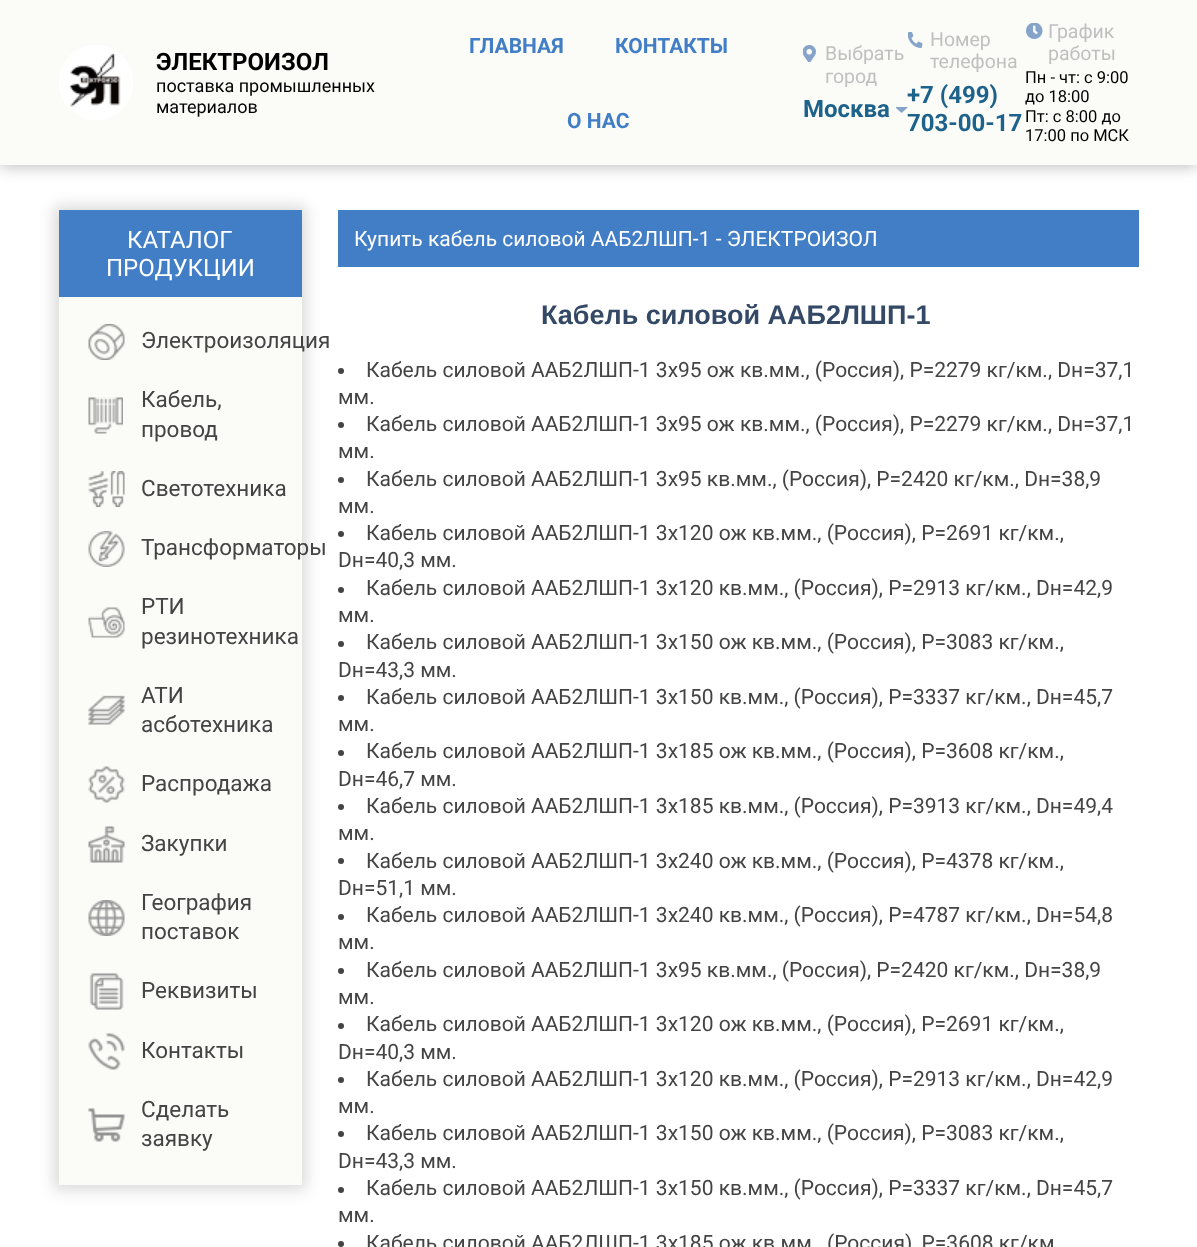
<svg xmlns="http://www.w3.org/2000/svg" xmlns:xlink="http://www.w3.org/1999/xlink" width="1197" height="1247" viewBox="0 0 1197 1247">
<style>
.cls-1{font:bold 24px Roboto;fill:#000000}
.cls-2{font:18px Roboto;fill:#000000}
.cls-3{font:bold 21px Roboto;fill:#417ec6}
.cls-4{font:19.5px Roboto;fill:#c0c0c0}
.cls-5{font:bold 24px Roboto;fill:#1d628b}
.cls-6{font:16.5px Roboto;fill:#000000}
.cls-7{font:24px Roboto;fill:#ffffff}
.cls-8{font:22.5px Roboto;fill:#444444}
.cls-9{font:21px Roboto;fill:#ffffff}
.cls-10{font:bold 27px Liberation Sans;fill:#344965}
.cls-11{font:21px Roboto;fill:#444444}
</style>
<rect width="100%" height="100%" fill="#ffffff"/>
<rect fill="#000000" fill-opacity="0.25" filter="blur(7.5px)" x="0" y="2" width="1197" height="165"/>
<rect fill="#fbfbf8" x="0" y="0" width="1197" height="165"/>
<image xlink:href="image0.png" x="59" y="45" width="74" height="75"/>
<image xlink:href="image1.png" x="803" y="45" width="13" height="17"/>
<image xlink:href="image2.png" x="896" y="107" width="12" height="6"/>
<image xlink:href="image3.png" x="908" y="32" width="15" height="16"/>
<image xlink:href="image4.png" x="1026" y="23" width="17" height="16"/>
<rect fill="#000000" fill-opacity="0.15" filter="blur(7.5px)" x="54" y="206" width="252" height="984"/>
<rect fill="#fbfbf8" x="59" y="297" width="243" height="888"/>
<rect fill="#417ec6" x="59" y="210" width="243" height="87"/>
<image xlink:href="image5.png" x="88" y="324" width="37" height="36"/>
<image xlink:href="image6.png" x="88" y="397" width="35" height="37"/>
<image xlink:href="image7.png" x="88" y="471" width="37" height="36"/>
<image xlink:href="image8.png" x="88" y="531" width="37" height="36"/>
<image xlink:href="image9.png" x="88" y="607" width="37" height="31"/>
<image xlink:href="image10.png" x="88" y="695" width="37" height="30"/>
<image xlink:href="image11.png" x="88" y="766" width="37" height="37"/>
<image xlink:href="image12.png" x="88" y="826" width="37" height="37"/>
<image xlink:href="image13.png" x="88" y="900" width="37" height="36"/>
<image xlink:href="image14.png" x="89" y="973" width="35" height="37"/>
<image xlink:href="image15.png" x="88" y="1033" width="37" height="37"/>
<image xlink:href="image16.png" x="88" y="1108" width="37" height="34"/>
<rect fill="#417ec6" x="338" y="210" width="801" height="57"/>
<circle fill="#444444" cx="341" cy="371" r="3"/>
<circle fill="#444444" cx="341" cy="425" r="3"/>
<circle fill="#444444" cx="341" cy="480" r="3"/>
<circle fill="#444444" cx="341" cy="534" r="3"/>
<circle fill="#444444" cx="341" cy="590" r="3"/>
<circle fill="#444444" cx="341" cy="644" r="3"/>
<circle fill="#444444" cx="341" cy="698" r="3"/>
<circle fill="#444444" cx="341" cy="753" r="3"/>
<circle fill="#444444" cx="341" cy="807" r="3"/>
<circle fill="#444444" cx="341" cy="861" r="3"/>
<circle fill="#444444" cx="341" cy="917" r="3"/>
<circle fill="#444444" cx="341" cy="971" r="3"/>
<circle fill="#444444" cx="341" cy="1026" r="3"/>
<circle fill="#444444" cx="341" cy="1080" r="3"/>
<circle fill="#444444" cx="341" cy="1134" r="3"/>
<circle fill="#444444" cx="341" cy="1190" r="3"/>
<circle fill="#444444" cx="341" cy="1244" r="3"/>
<text class="cls-1" x="156" y="70">ЭЛЕКТРОИЗОЛ</text>
<text class="cls-2"><tspan x="156" y="92">поставка промышленных</tspan><tspan x="156" y="113">материалов</tspan></text>
<text class="cls-3" x="469" y="53">ГЛАВНАЯ</text>
<text class="cls-3" x="615" y="53">КОНТАКТЫ</text>
<text class="cls-3" x="567" y="128">О НАС</text>
<text class="cls-4"><tspan x="825" y="60">Выбрать</tspan><tspan x="825" y="83">город</tspan></text>
<text class="cls-5" x="803" y="117">Москва</text>
<text class="cls-4"><tspan x="930" y="46">Номер</tspan><tspan x="930" y="68">телефона</tspan></text>
<text class="cls-5"><tspan x="907" y="103">+7 (499)</tspan><tspan x="907" y="131">703-00-17</tspan></text>
<text class="cls-4"><tspan x="1048" y="38">График</tspan><tspan x="1048" y="60">работы</tspan></text>
<text class="cls-6"><tspan x="1025" y="83">Пн - чт: с 9:00</tspan><tspan x="1025" y="102">до 18:00</tspan><tspan x="1025" y="122">Пт: с 8:00 до</tspan><tspan x="1025" y="141">17:00 по МСК</tspan></text>
<text class="cls-7" x="127" y="248">КАТАЛОГ</text>
<text class="cls-7" x="106" y="276">ПРОДУКЦИИ</text>
<text class="cls-8" x="141" y="348">Электроизоляция</text>
<text class="cls-8"><tspan x="141" y="407">Кабель,</tspan><tspan x="141" y="437">провод</tspan></text>
<text class="cls-8" x="141" y="496">Светотехника</text>
<text class="cls-8" x="141" y="555">Трансформаторы</text>
<text class="cls-8"><tspan x="141" y="614">РТИ</tspan><tspan x="141" y="644">резинотехника</tspan></text>
<text class="cls-8"><tspan x="141" y="703">АТИ</tspan><tspan x="141" y="732">асботехника</tspan></text>
<text class="cls-8" x="141" y="791">Распродажа</text>
<text class="cls-8" x="141" y="851">Закупки</text>
<text class="cls-8"><tspan x="141" y="910">География</tspan><tspan x="141" y="939">поставок</tspan></text>
<text class="cls-8" x="141" y="998">Реквизиты</text>
<text class="cls-8" x="141" y="1058">Контакты</text>
<text class="cls-8"><tspan x="141" y="1117">Сделать</tspan><tspan x="141" y="1146">заявку</tspan></text>
<text class="cls-9" x="354" y="246">Купить кабель силовой ААБ2ЛШП-1 - ЭЛЕКТРОИЗОЛ</text>
<text class="cls-10" x="541" y="324">Кабель силовой ААБ2ЛШП-1</text>
<text class="cls-11" x="366" y="377">Кабель силовой ААБ2ЛШП-1 3х95 ож кв.мм., (Россия), P=2279 кг/км., Dн=37,1</text>
<text class="cls-11" x="338" y="404">мм.</text>
<text class="cls-11" x="366" y="431">Кабель силовой ААБ2ЛШП-1 3х95 ож кв.мм., (Россия), P=2279 кг/км., Dн=37,1</text>
<text class="cls-11" x="338" y="458">мм.</text>
<text class="cls-11" x="366" y="486">Кабель силовой ААБ2ЛШП-1 3х95 кв.мм., (Россия), P=2420 кг/км., Dн=38,9</text>
<text class="cls-11" x="338" y="513">мм.</text>
<text class="cls-11" x="366" y="540">Кабель силовой ААБ2ЛШП-1 3х120 ож кв.мм., (Россия), P=2691 кг/км.,</text>
<text class="cls-11" x="338" y="567">Dн=40,3 мм.</text>
<text class="cls-11" x="366" y="595">Кабель силовой ААБ2ЛШП-1 3х120 кв.мм., (Россия), P=2913 кг/км., Dн=42,9</text>
<text class="cls-11" x="338" y="622">мм.</text>
<text class="cls-11" x="366" y="649">Кабель силовой ААБ2ЛШП-1 3х150 ож кв.мм., (Россия), P=3083 кг/км.,</text>
<text class="cls-11" x="338" y="677">Dн=43,3 мм.</text>
<text class="cls-11" x="366" y="704">Кабель силовой ААБ2ЛШП-1 3х150 кв.мм., (Россия), P=3337 кг/км., Dн=45,7</text>
<text class="cls-11" x="338" y="731">мм.</text>
<text class="cls-11" x="366" y="758">Кабель силовой ААБ2ЛШП-1 3х185 ож кв.мм., (Россия), P=3608 кг/км.,</text>
<text class="cls-11" x="338" y="786">Dн=46,7 мм.</text>
<text class="cls-11" x="366" y="813">Кабель силовой ААБ2ЛШП-1 3х185 кв.мм., (Россия), P=3913 кг/км., Dн=49,4</text>
<text class="cls-11" x="338" y="840">мм.</text>
<text class="cls-11" x="366" y="868">Кабель силовой ААБ2ЛШП-1 3х240 ож кв.мм., (Россия), P=4378 кг/км.,</text>
<text class="cls-11" x="338" y="895">Dн=51,1 мм.</text>
<text class="cls-11" x="366" y="922">Кабель силовой ААБ2ЛШП-1 3х240 кв.мм., (Россия), P=4787 кг/км., Dн=54,8</text>
<text class="cls-11" x="338" y="949">мм.</text>
<text class="cls-11" x="366" y="977">Кабель силовой ААБ2ЛШП-1 3х95 кв.мм., (Россия), P=2420 кг/км., Dн=38,9</text>
<text class="cls-11" x="338" y="1004">мм.</text>
<text class="cls-11" x="366" y="1031">Кабель силовой ААБ2ЛШП-1 3х120 ож кв.мм., (Россия), P=2691 кг/км.,</text>
<text class="cls-11" x="338" y="1059">Dн=40,3 мм.</text>
<text class="cls-11" x="366" y="1086">Кабель силовой ААБ2ЛШП-1 3х120 кв.мм., (Россия), P=2913 кг/км., Dн=42,9</text>
<text class="cls-11" x="338" y="1113">мм.</text>
<text class="cls-11" x="366" y="1140">Кабель силовой ААБ2ЛШП-1 3х150 ож кв.мм., (Россия), P=3083 кг/км.,</text>
<text class="cls-11" x="338" y="1168">Dн=43,3 мм.</text>
<text class="cls-11" x="366" y="1195">Кабель силовой ААБ2ЛШП-1 3х150 кв.мм., (Россия), P=3337 кг/км., Dн=45,7</text>
<text class="cls-11" x="338" y="1222">мм.</text>
<text class="cls-11" x="366" y="1250">Кабель силовой ААБ2ЛШП-1 3х185 ож кв.мм</text>
<text class="cls-11" x="827" y="1250">(Россия), P=3608 кг/км</text>
</svg>
